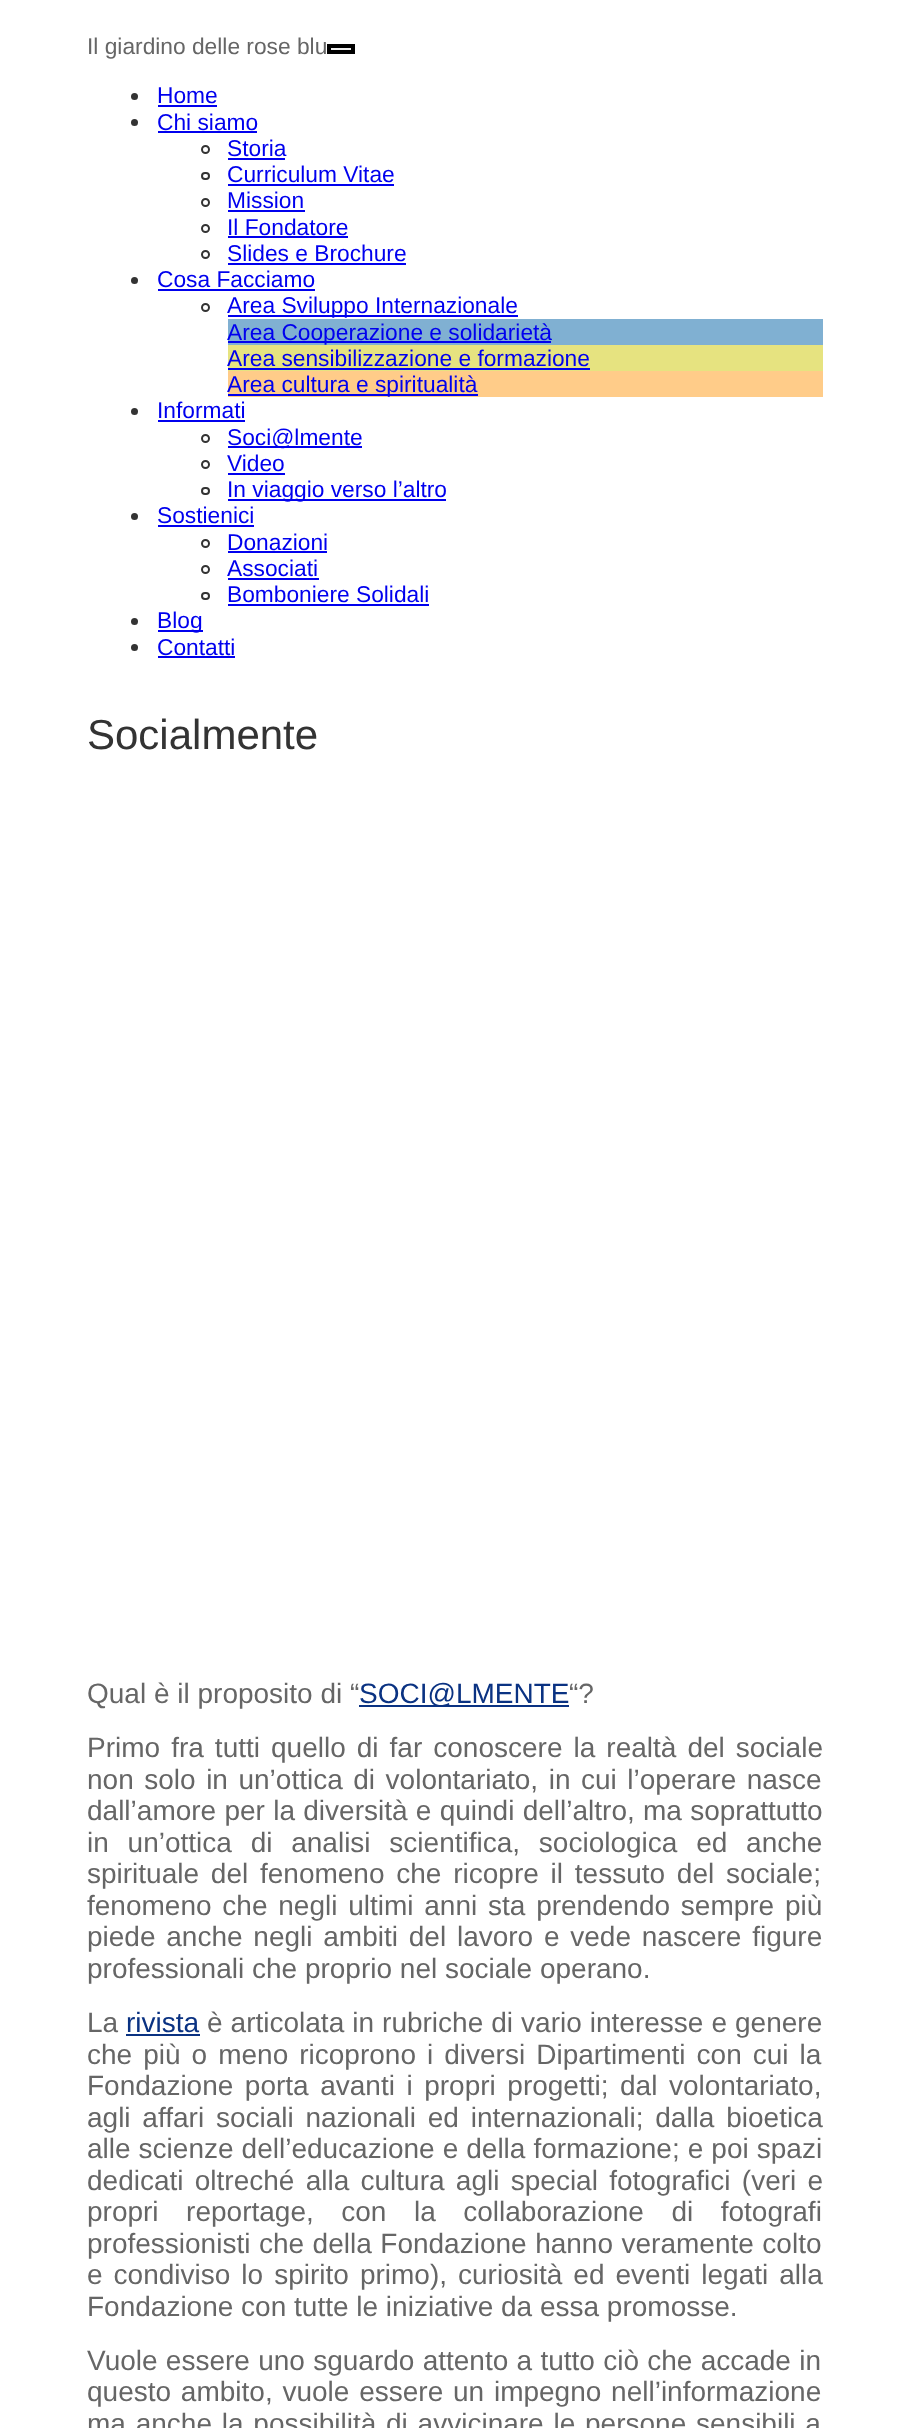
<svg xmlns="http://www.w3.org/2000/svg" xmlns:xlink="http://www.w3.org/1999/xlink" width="908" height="2428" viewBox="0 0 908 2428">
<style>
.cls-1{font:22.75px Liberation Sans;fill:#666666}
.cls-2{font:22.75px Liberation Sans;fill:#0000ee}
.cls-3{font:42px Liberation Sans;fill:#333333}
.cls-4{font:28px Liberation Sans;fill:#666666}
.cls-5{font:28px Liberation Sans;fill:#0a3282}
</style>
<rect width="100%" height="100%" fill="#ffffff"/>
<rect fill="#efefef" stroke="#000000" stroke-width="4" x="329" y="46" width="24" height="6"/>
<circle fill="#333333" cx="134.5" cy="96.5" r="3.5"/>
<rect fill="#0000ee" x="158" y="105" width="59" height="2"/>
<circle fill="#333333" cx="134.5" cy="122.5" r="3.5"/>
<rect fill="#0000ee" x="158" y="131" width="99" height="2"/>
<circle fill="none" stroke="#333333" stroke-width="2" cx="205.5" cy="149.5" r="3.5"/>
<rect fill="#0000ee" x="228" y="158" width="57" height="2"/>
<rect fill="none" stroke="#333333" stroke-width="2" x="202" y="173" width="7" height="6" rx="3"/>
<rect fill="#0000ee" x="228" y="184" width="166" height="2"/>
<circle fill="none" stroke="#333333" stroke-width="2" cx="205.5" cy="202.5" r="3.5"/>
<rect fill="#0000ee" x="228" y="210" width="77" height="2"/>
<circle fill="none" stroke="#333333" stroke-width="2" cx="205.5" cy="228.5" r="3.5"/>
<rect fill="#0000ee" x="228" y="236" width="120" height="2"/>
<circle fill="none" stroke="#333333" stroke-width="2" cx="205.5" cy="254.5" r="3.5"/>
<rect fill="#0000ee" x="228" y="263" width="178" height="2"/>
<circle fill="#333333" cx="134.5" cy="280.5" r="3.5"/>
<rect fill="#0000ee" x="158" y="289" width="157" height="2"/>
<circle fill="none" stroke="#333333" stroke-width="2" cx="205.5" cy="307.5" r="3.5"/>
<rect fill="#0000ee" x="228" y="315" width="290" height="2"/>
<rect fill="#80b0d2" x="228" y="319" width="595" height="26"/>
<rect fill="#0000ee" x="228" y="341" width="323" height="2"/>
<rect fill="#e6e380" x="228" y="345" width="595" height="26"/>
<rect fill="#0000ee" x="228" y="368" width="362" height="2"/>
<rect fill="#ffcc89" x="228" y="371" width="595" height="26"/>
<rect fill="#0000ee" x="228" y="394" width="250" height="2"/>
<circle fill="#333333" cx="134.5" cy="411.5" r="3.5"/>
<rect fill="#0000ee" x="158" y="420" width="87" height="2"/>
<circle fill="none" stroke="#333333" stroke-width="2" cx="205.5" cy="438.5" r="3.5"/>
<rect fill="#0000ee" x="228" y="446" width="134" height="2"/>
<circle fill="none" stroke="#333333" stroke-width="2" cx="205.5" cy="464.5" r="3.5"/>
<rect fill="#0000ee" x="228" y="473" width="57" height="2"/>
<rect fill="none" stroke="#333333" stroke-width="2" x="202" y="488" width="7" height="6" rx="3"/>
<rect fill="#0000ee" x="228" y="499" width="218" height="2"/>
<circle fill="#333333" cx="134.5" cy="516.5" r="3.5"/>
<rect fill="#0000ee" x="158" y="525" width="96" height="2"/>
<circle fill="none" stroke="#333333" stroke-width="2" cx="205.5" cy="543.5" r="3.5"/>
<rect fill="#0000ee" x="228" y="551" width="99" height="2"/>
<circle fill="none" stroke="#333333" stroke-width="2" cx="205.5" cy="569.5" r="3.5"/>
<rect fill="#0000ee" x="228" y="578" width="91" height="2"/>
<rect fill="none" stroke="#333333" stroke-width="2" x="202" y="593" width="7" height="6" rx="3"/>
<rect fill="#0000ee" x="228" y="604" width="201" height="2"/>
<circle fill="#333333" cx="134.5" cy="621.5" r="3.5"/>
<rect fill="#0000ee" x="158" y="630" width="45" height="2"/>
<circle fill="#333333" cx="134.5" cy="647.5" r="3.5"/>
<rect fill="#0000ee" x="158" y="656" width="77" height="2"/>
<rect fill="#0a3282" x="359" y="1705" width="210" height="2"/>
<rect fill="#0a3282" x="126" y="2034" width="74" height="2"/>
<text class="cls-1" x="87" y="54">Il giardino delle rose blu</text>
<text class="cls-2"><tspan x="157" y="103">Home</tspan><tspan x="157" y="130">Chi siamo</tspan></text>
<text class="cls-2"><tspan x="227" y="156">Storia</tspan><tspan x="227" y="182">Curriculum Vitae</tspan><tspan x="227" y="208">Mission</tspan><tspan x="227" y="235">Il Fondatore</tspan><tspan x="227" y="261">Slides e Brochure</tspan></text>
<text class="cls-2" x="157" y="287">Cosa Facciamo</text>
<text class="cls-2"><tspan x="227" y="313">Area Sviluppo Internazionale</tspan><tspan x="227" y="340">Area Cooperazione e solidarietà</tspan><tspan x="227" y="366">Area sensibilizzazione e formazione</tspan><tspan x="227" y="392">Area cultura e spiritualità</tspan></text>
<text class="cls-2" x="157" y="418">Informati</text>
<text class="cls-2"><tspan x="227" y="445">Soci@lmente</tspan><tspan x="227" y="471">Video</tspan><tspan x="227" y="497">In viaggio verso l’altro</tspan></text>
<text class="cls-2" x="157" y="523">Sostienici</text>
<text class="cls-2"><tspan x="227" y="550">Donazioni</tspan><tspan x="227" y="576">Associati</tspan><tspan x="227" y="602">Bomboniere Solidali</tspan></text>
<text class="cls-2"><tspan x="157" y="628">Blog</tspan><tspan x="157" y="655">Contatti</tspan></text>
<text class="cls-3" x="87" y="749">Socialmente</text>
<text class="cls-4" x="87" y="1703">Qual è il proposito di “</text>
<text class="cls-5" x="359" y="1703">SOCI@LMENTE</text>
<text class="cls-4" x="569" y="1703">“?</text>
<text class="cls-4"><tspan x="87" y="1757" word-spacing="3.25">Primo fra tutti quello di far conoscere la realtà del sociale</tspan><tspan x="87" y="1789" word-spacing="2.75">non solo in un’ottica di volontariato, in cui l’operare nasce</tspan><tspan x="87" y="1820" word-spacing="0.5">dall’amore per la diversità e quindi dell’altro, ma soprattutto</tspan><tspan x="87" y="1852" word-spacing="11">in un’ottica di analisi scientifica, sociologica ed anche</tspan><tspan x="87" y="1883" word-spacing="4">spirituale del fenomeno che ricopre il tessuto del sociale;</tspan><tspan x="87" y="1915" word-spacing="3">fenomeno che negli ultimi anni sta prendendo sempre più</tspan><tspan x="87" y="1946" word-spacing="3">piede anche negli ambiti del lavoro e vede nascere figure</tspan><tspan x="87" y="1978">professionali che proprio nel sociale operano.</tspan><tspan x="87" y="2032">La</tspan></text>
<text class="cls-5" x="126" y="2032">rivista</text>
<text class="cls-4" x="207" y="2032" word-spacing="0.25">è articolata in rubriche di vario interesse e genere</text>
<text class="cls-4"><tspan x="87" y="2064" word-spacing="3.25">che più o meno ricoprono i diversi Dipartimenti con cui la</tspan><tspan x="87" y="2095" word-spacing="3.75">Fondazione porta avanti i propri progetti; dal volontariato,</tspan><tspan x="87" y="2127" word-spacing="4">agli affari sociali nazionali ed internazionali; dalla bioetica</tspan><tspan x="87" y="2158" word-spacing="0.25">alle scienze dell’educazione e della formazione; e poi spazi</tspan><tspan x="87" y="2190" word-spacing="3.5">dedicati oltreché alla cultura agli special fotografici (veri e</tspan><tspan x="87" y="2221" word-spacing="19.75">propri reportage, con la collaborazione di fotografi</tspan><tspan x="87" y="2253" word-spacing="0.75">professionisti che della Fondazione hanno veramente colto</tspan><tspan x="87" y="2284" word-spacing="3.25">e condiviso lo spirito primo), curiosità ed eventi legati alla</tspan><tspan x="87" y="2316">Fondazione con tutte le iniziative da essa promosse.</tspan><tspan x="87" y="2370" word-spacing="0.5">Vuole essere uno sguardo attento a tutto ciò che accade in</tspan><tspan x="87" y="2401" word-spacing="2">questo ambito, vuole essere un impegno nell’informazione</tspan><tspan x="87" y="2433" word-spacing="2">ma anche la possibilità di avvicinare le persone sensibili a</tspan></text>
</svg>
